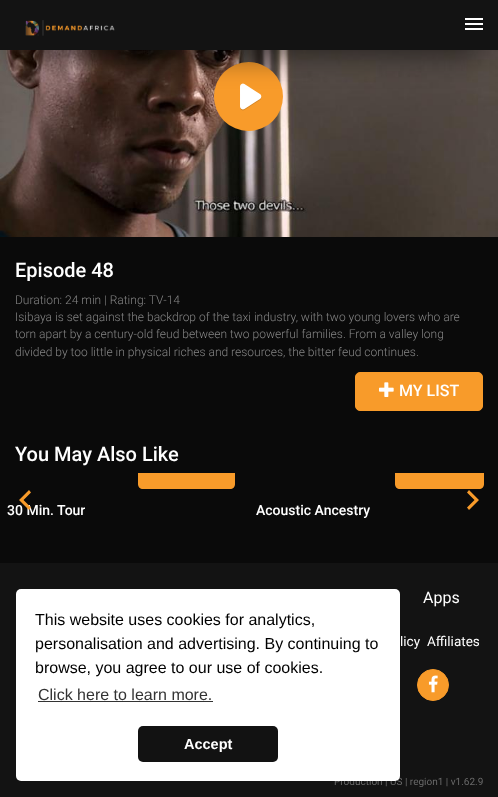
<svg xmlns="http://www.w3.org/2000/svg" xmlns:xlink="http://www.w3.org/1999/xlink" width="498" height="797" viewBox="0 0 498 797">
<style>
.cls-1{font:500 20px Roboto;fill:#ffffff}
.cls-2{font:300 12px Roboto;fill:#858585}
.cls-3{font:500 16px Roboto;fill:#ffffff}
.cls-4{font:500 14px Roboto;fill:#ffffff}
.cls-5{font:16px Roboto;fill:#ffffff}
.cls-6{font:13.5px Roboto;fill:#ffffff}
.cls-7{font:10px Roboto;fill:#696969}
.cls-8{font:16px Liberation Sans;fill:#333333}
.cls-9{font:bold 14.5px Liberation Sans;fill:#ffffff}
.cls-10{font:16px Liberation Sans;fill:#000000}
</style>
<rect width="100%" height="100%" fill="#0a0a0a"/>
<image xlink:href="image1.png" x="0" y="50" width="498" height="187"/>
<image xlink:href="image2.png" x="214" y="62" width="69" height="69"/>
<rect fill="#040404" filter="blur(16px)" x="16" y="32" width="466" height="18"/>
<rect fill="#131313" x="0" y="0" width="498" height="50"/>
<image xlink:href="image0.png" x="25" y="20" width="90" height="16"/>
<rect fill="#ffffff" x="465" y="18" width="18" height="2"/>
<rect fill="#ffffff" x="465" y="23" width="18" height="2"/>
<rect fill="#ffffff" x="465" y="28" width="18" height="2"/>
<rect fill="#f89b2a" stroke="#f89b2a" x="355.5" y="372.5" width="127" height="38" rx="4.5"/>
<image xlink:href="image3.png" x="379" y="382" width="15" height="15"/>
<path fill="#f89b2a" d="M469 490L467 492.5L474.5 500L467 507.5L469 510L479 500Z"/>
<path fill="#f89b2a" d="M138 473H235V484C235 487 233 489 230 489H143C140 489 138 487 138 484Z"/>
<path fill="#f89b2a" d="M395 473H484V484C484 487 482 489 479 489H400C397 489 395 487 395 484Z"/>
<rect fill="#131313" x="0" y="563" width="498" height="234"/>
<circle fill="#f89b2a" stroke="#f89b2a" cx="433" cy="685" r="15.5"/>
<image xlink:href="image4.png" x="428" y="675" width="10" height="18"/>
<text class="cls-1" x="15" y="277">Episode 48</text>
<text class="cls-2"><tspan x="15" y="304">Duration: 24 min | Rating: TV-14</tspan><tspan x="15" y="321">Isibaya is set against the backdrop of the taxi industry, with two young lovers who are</tspan><tspan x="15" y="338">torn apart by a century-old feud between two powerful families. From a valley long</tspan><tspan x="15" y="356">divided by too little in physical riches and resources, the bitter feud continues.</tspan></text>
<text class="cls-3" x="399" y="396">MY LIST</text>
<text class="cls-1" x="15" y="461">You May Also Like</text>
<text class="cls-4" x="7" y="515">30 Min. Tour</text>
<path fill="#f89b2a" d="M29 510L31 507.5L23.5 500L31 492.5L29 490L19 500Z"/>
<text class="cls-4" x="256" y="515">Acoustic Ancestry</text>
<text class="cls-5" x="423" y="603">Apps</text>
<text class="cls-6" x="400" y="646">licy</text>
<text class="cls-6" x="427" y="646">Affiliates</text>
<text class="cls-7" x="334" y="785">Production | US | region1 | v1.62.9</text>
<rect fill="#ffffff" x="16" y="589" width="384" height="192" rx="5"/>
<text class="cls-8" x="38" y="700">Click here to learn more.</text>
<rect fill="#333333" x="38" y="701" width="175" height="1"/>
<rect fill="#121212" x="138" y="726" width="140" height="36" rx="5"/>
<text class="cls-9" x="184" y="749">Accept</text>
<text class="cls-10" x="35" y="673">browse, you agree to our use of cookies.</text>
<text class="cls-10" x="35" y="649">personalisation and advertising. By continuing to</text>
<text class="cls-10" x="35" y="625">This website uses cookies for analytics,</text>
</svg>
